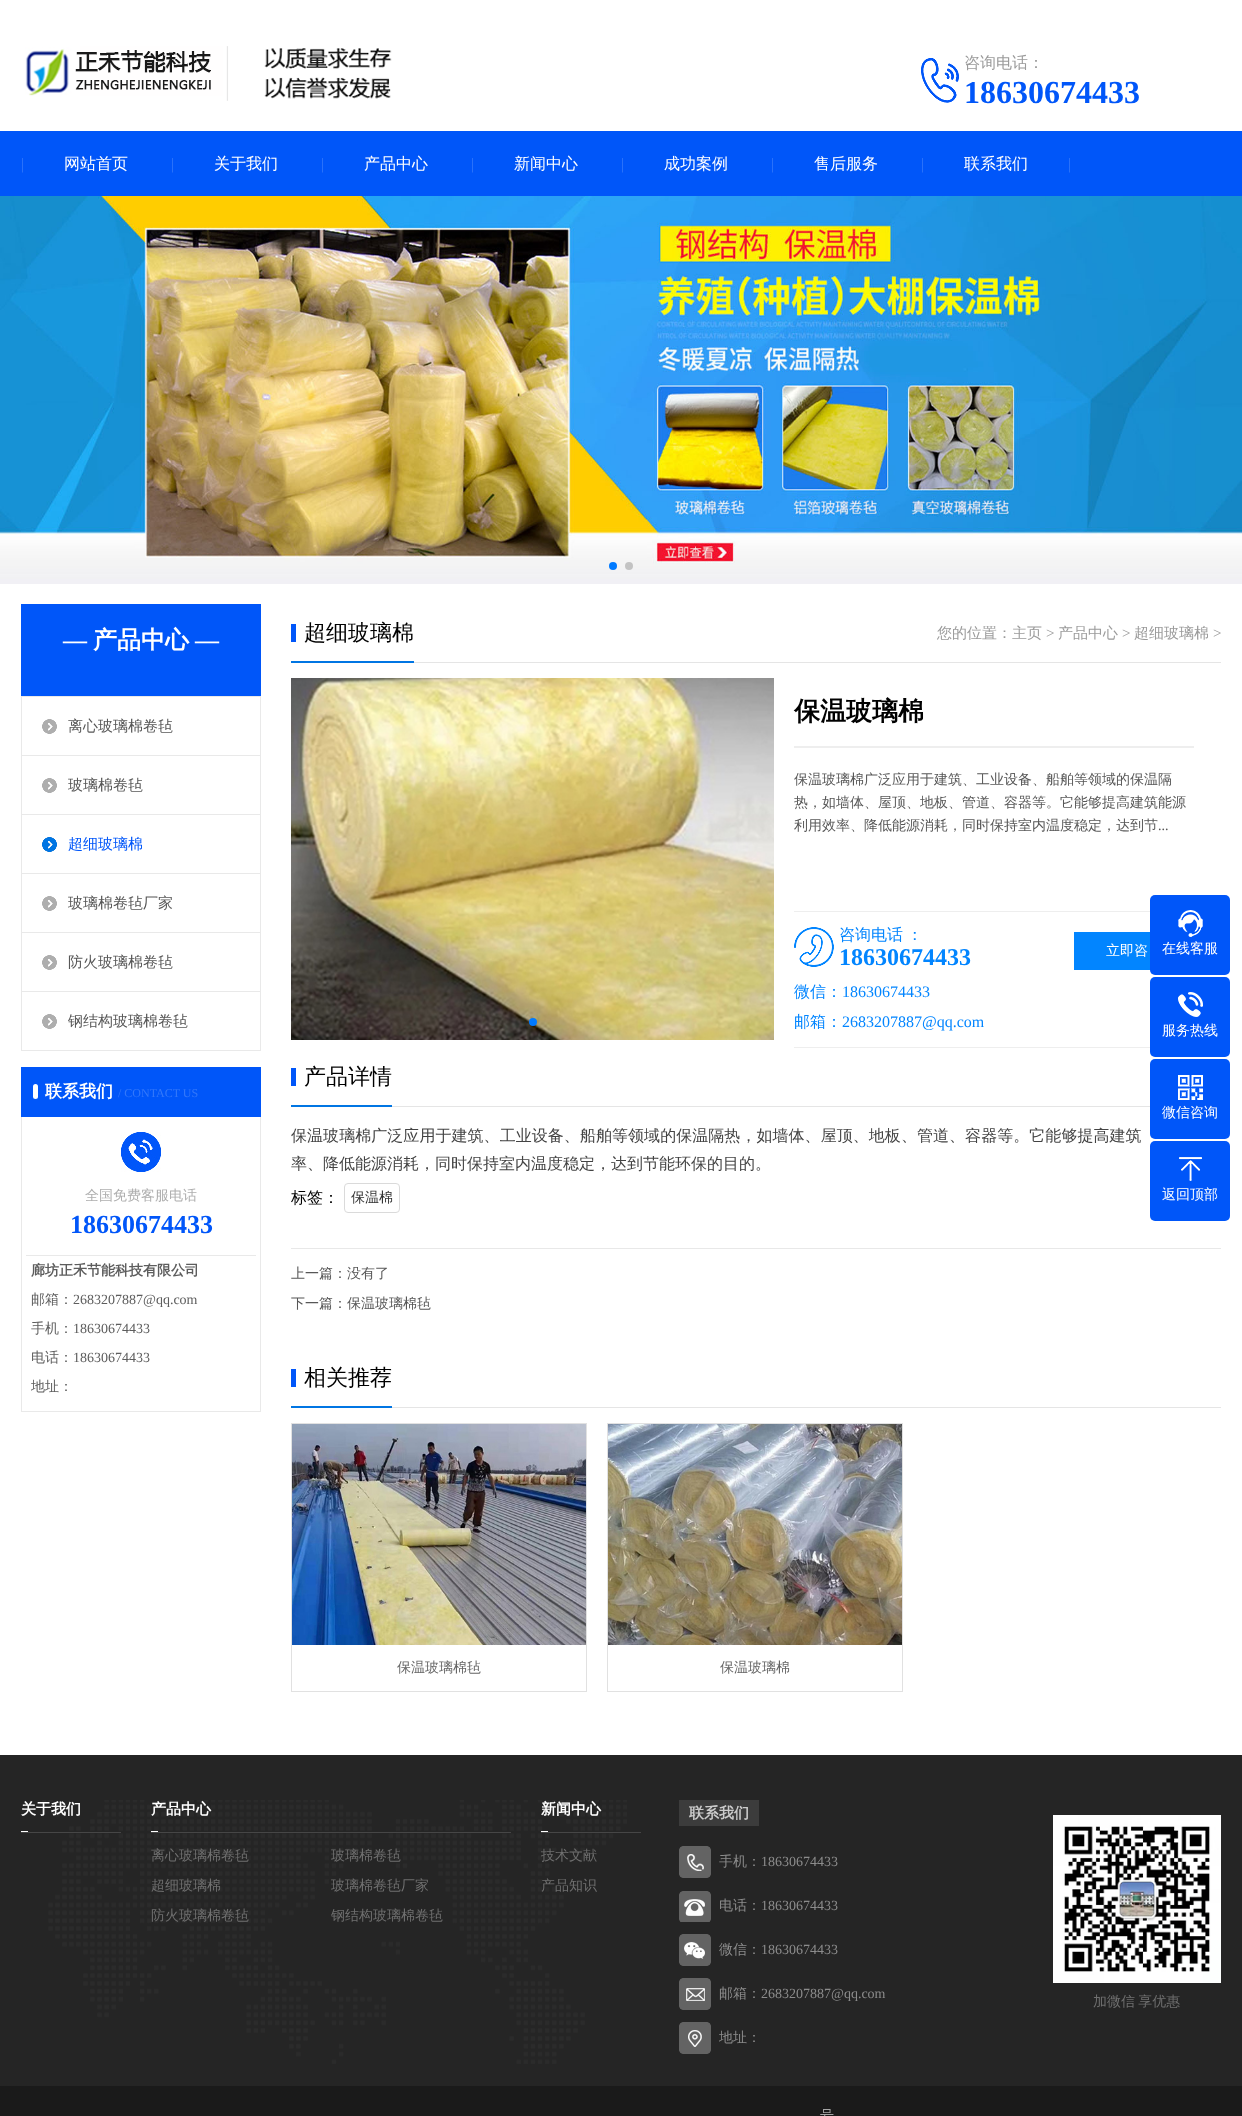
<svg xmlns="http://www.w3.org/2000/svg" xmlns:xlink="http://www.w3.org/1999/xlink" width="1242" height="2116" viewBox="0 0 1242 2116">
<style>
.cls-1{font:500 16px WenQuanYi Zen Hei;fill:#9b9b9b}
.cls-2{font:bold 32px Liberation Serif;fill:#0056f9}
.cls-3{font:16px Liberation Serif;fill:#3378fa}
.cls-4{font:500 16px WenQuanYi Zen Hei;fill:#ffffff}
.cls-5{font:bold 24px Liberation Serif;fill:#ffffff}
.cls-6{font:bold 24px WenQuanYi Zen Hei;fill:#ffffff}
.cls-7{font:500 15px WenQuanYi Zen Hei;fill:#575757}
.cls-8{font:500 15px WenQuanYi Zen Hei;fill:#0056f9}
.cls-9{font:bold 17px WenQuanYi Zen Hei;fill:#ffffff}
.cls-10{font:12px Liberation Serif;fill:#3378fa}
.cls-11{font:500 14px WenQuanYi Zen Hei;fill:#aeaeae}
.cls-12{font:bold 26px Liberation Serif;fill:#0056f9}
.cls-13{font:bold 14px WenQuanYi Zen Hei;fill:#5d5d5d}
.cls-14{font:500 14px WenQuanYi Zen Hei;fill:#5d5d5d}
.cls-15{font:14px Liberation Serif;fill:#5d5d5d}
.cls-16{font:500 22px WenQuanYi Zen Hei;fill:#000000}
.cls-17{font:500 15px WenQuanYi Zen Hei;fill:#9b9b9b}
.cls-18{font:15px Liberation Serif;fill:#9b9b9b}
.cls-19{font:bold 26px WenQuanYi Zen Hei;fill:#000000}
.cls-20{font:500 14px WenQuanYi Zen Hei;fill:#575757}
.cls-21{font:14px Liberation Serif;fill:#575757}
.cls-22{font:500 16px WenQuanYi Zen Hei;fill:#0285ff}
.cls-23{font:bold 24px Liberation Serif;fill:#0285ff}
.cls-24{font:500 14px WenQuanYi Zen Hei;fill:#ffffff}
.cls-25{font:16px Liberation Serif;fill:#0285ff}
.cls-26{font:500 16px WenQuanYi Zen Hei;letter-spacing:0.05px;fill:#434343}
.cls-27{font:500 16px WenQuanYi Zen Hei;fill:#434343}
.cls-28{font:500 16px WenQuanYi Zen Hei;fill:#000000}
.cls-29{font:500 14px WenQuanYi Zen Hei;fill:#333333}
.cls-30{font:500 14px WenQuanYi Zen Hei;fill:#666666}
.cls-31{font:bold 15px WenQuanYi Zen Hei;fill:#ffffff}
.cls-32{font:500 14px WenQuanYi Zen Hei;fill:#6f6f6f}
.cls-33{font:bold 15px WenQuanYi Zen Hei;fill:#cbcbcb}
.cls-34{font:500 14px WenQuanYi Zen Hei;fill:#8c8c8c}
.cls-35{font:14px Liberation Serif;fill:#8c8c8c}
.cls-36{font:500 14px WenQuanYi Zen Hei;fill:#a6a6a6}
</style>
<rect width="100%" height="100%" fill="#ffffff"/>
<image xlink:href="image0.png" x="25" y="46" width="367" height="55"/>
<image xlink:href="image1.png" x="921" y="58" width="38" height="45"/>
<rect fill="#0056f9" x="0" y="131" width="1242" height="65"/>
<image xlink:href="image2.png" x="0" y="196" width="1242" height="388"/>
<circle fill="#007aff" cx="613" cy="566" r="4"/>
<circle fill="#c3c3c3" cx="629" cy="566" r="4"/>
<rect fill="#0056f9" x="21" y="604" width="240" height="92"/>
<rect fill="#e9e9e9" x="260" y="696" width="1" height="355"/>
<rect fill="#e9e9e9" x="21" y="1050" width="240" height="1"/>
<rect fill="#e9e9e9" x="21" y="696" width="1" height="355"/>
<image xlink:href="image3.png" x="42" y="719" width="15" height="15"/>
<rect fill="#e9e9e9" x="22" y="696" width="238" height="1"/>
<image xlink:href="image3.png" x="42" y="778" width="15" height="15"/>
<rect fill="#e9e9e9" x="22" y="755" width="238" height="1"/>
<image xlink:href="image4.png" x="42" y="837" width="15" height="15"/>
<rect fill="#e9e9e9" x="22" y="814" width="238" height="1"/>
<image xlink:href="image3.png" x="42" y="896" width="15" height="15"/>
<rect fill="#e9e9e9" x="22" y="873" width="238" height="1"/>
<image xlink:href="image3.png" x="42" y="955" width="15" height="15"/>
<rect fill="#e9e9e9" x="22" y="932" width="238" height="1"/>
<image xlink:href="image3.png" x="42" y="1014" width="15" height="15"/>
<rect fill="#e9e9e9" x="22" y="991" width="238" height="1"/>
<rect fill="#0056f9" x="21" y="1067" width="240" height="50"/>
<rect fill="#ffffff" x="33" y="1084" width="5" height="15" rx="2.5"/>
<rect fill="#e9e9e9" x="260" y="1117" width="1" height="295"/>
<rect fill="#e9e9e9" x="21" y="1411" width="240" height="1"/>
<rect fill="#e9e9e9" x="21" y="1117" width="1" height="295"/>
<rect fill="#e9e9e9" x="26" y="1255" width="230" height="1"/>
<image xlink:href="image5.png" x="121" y="1132" width="40" height="40"/>
<rect fill="#e5e5e5" x="414" y="662" width="807" height="1"/>
<rect fill="#0075e3" x="291" y="661" width="123" height="2"/>
<rect fill="#0056f9" x="291" y="624" width="5" height="18"/>
<image xlink:href="image6.png" x="291" y="678" width="483" height="362"/>
<circle fill="#007aff" cx="533" cy="1022" r="4"/>
<rect fill="#eeeeee" x="794" y="746" width="400" height="2"/>
<rect fill="#eeeeee" x="794" y="911" width="356" height="1"/>
<rect fill="#eeeeee" x="794" y="1047" width="356" height="1"/>
<image xlink:href="image7.png" x="794" y="927" width="40" height="40"/>
<rect fill="#0285ff" x="1074" y="932" width="76" height="38"/>
<rect fill="#e5e5e5" x="392" y="1106" width="758" height="1"/>
<rect fill="#0075e3" x="291" y="1105" width="101" height="2"/>
<rect fill="#0056f9" x="291" y="1068" width="5" height="18"/>
<rect fill="none" stroke="#dadada" x="344.5" y="1183.5" width="55" height="29" rx="3.5"/>
<rect fill="#e8e8e8" x="291" y="1248" width="930" height="1"/>
<rect fill="#e5e5e5" x="392" y="1407" width="829" height="1"/>
<rect fill="#0075e3" x="291" y="1406" width="101" height="2"/>
<rect fill="#0056f9" x="291" y="1369" width="5" height="18"/>
<rect fill="none" stroke="#e1e1e1" x="291.5" y="1423.5" width="295" height="268"/>
<image xlink:href="image8.png" x="292" y="1424" width="294" height="221"/>
<rect fill="none" stroke="#e1e1e1" x="607.5" y="1423.5" width="295" height="268"/>
<image xlink:href="image9.png" x="608" y="1424" width="294" height="221"/>
<rect fill="#0056f9" x="1150" y="895" width="80" height="80" rx="5"/>
<image xlink:href="image10.png" x="1178" y="910" width="25" height="27"/>
<rect fill="#0056f9" x="1150" y="977" width="80" height="80" rx="5"/>
<image xlink:href="image11.png" x="1178" y="992" width="25" height="25"/>
<rect fill="#0056f9" x="1150" y="1059" width="80" height="80" rx="5"/>
<image xlink:href="image12.png" x="1178" y="1075" width="25" height="25"/>
<rect fill="#0056f9" x="1150" y="1141" width="80" height="80" rx="5"/>
<image xlink:href="image13.png" x="1179" y="1157" width="23" height="24"/>
<rect fill="#252525" x="0" y="1755" width="1242" height="331"/>
<image xlink:href="image14.png" x="42" y="1800" width="585" height="264"/>
<rect fill="#464646" x="21" y="1832" width="100" height="1"/>
<rect fill="#ffffff" x="21" y="1831" width="7" height="1"/>
<rect fill="#464646" x="151" y="1832" width="360" height="1"/>
<rect fill="#ffffff" x="151" y="1831" width="7" height="1"/>
<rect fill="#464646" x="541" y="1832" width="100" height="1"/>
<rect fill="#ffffff" x="541" y="1831" width="7" height="1"/>
<rect fill="#3c3c3c" x="679" y="1800" width="80" height="26"/>
<image xlink:href="image15.png" x="679" y="1846" width="32" height="32"/>
<image xlink:href="image16.png" x="679" y="1891" width="32" height="31"/>
<image xlink:href="image17.png" x="679" y="1934" width="32" height="32"/>
<image xlink:href="image18.png" x="679" y="1978" width="32" height="32"/>
<image xlink:href="image19.png" x="679" y="2022" width="32" height="32"/>
<image xlink:href="image20.png" x="1053" y="1815" width="168" height="168"/>
<rect fill="#1a1a1a" x="0" y="2086" width="1242" height="30"/>
<text class="cls-1" x="964" y="68">咨询电话：</text>
<text class="cls-2" x="964" y="103">18630674433</text>
<text class="cls-3" x="21" y="169">|</text>
<text class="cls-4" x="64" y="169">网站首页</text>
<text class="cls-3" x="171" y="169">|</text>
<text class="cls-4" x="214" y="169">关于我们</text>
<text class="cls-3" x="321" y="169">|</text>
<text class="cls-4" x="364" y="169">产品中心</text>
<text class="cls-3" x="471" y="169">|</text>
<text class="cls-4" x="514" y="169">新闻中心</text>
<text class="cls-3" x="621" y="169">|</text>
<text class="cls-4" x="664" y="169">成功案例</text>
<text class="cls-3" x="771" y="169">|</text>
<text class="cls-4" x="814" y="169">售后服务</text>
<text class="cls-3" x="921" y="169">|</text>
<text class="cls-4" x="964" y="169">联系我们</text>
<text class="cls-3" x="1068" y="169">|</text>
<text class="cls-5" x="63" y="648">—</text>
<text class="cls-6" x="93" y="648">产品中心</text>
<text class="cls-5" x="195" y="648">—</text>
<text class="cls-7" x="68" y="731">离心玻璃棉卷毡</text>
<text class="cls-7" x="68" y="790">玻璃棉卷毡</text>
<text class="cls-8" x="68" y="849">超细玻璃棉</text>
<text class="cls-7" x="68" y="908">玻璃棉卷毡厂家</text>
<text class="cls-7" x="68" y="967">防火玻璃棉卷毡</text>
<text class="cls-7" x="68" y="1026">钢结构玻璃棉卷毡</text>
<text class="cls-9" x="45" y="1097">联系我们</text>
<text class="cls-10" x="118" y="1097">/ CONTACT US</text>
<text class="cls-11" x="85" y="1200">全国免费客服电话</text>
<text class="cls-12" x="70" y="1233">18630674433</text>
<text class="cls-13" x="31" y="1275">廊坊正禾节能科技有限公司</text>
<text class="cls-14" x="31" y="1304">邮箱：</text>
<text class="cls-15" x="73" y="1304">2683207887@qq.com</text>
<text class="cls-14" x="31" y="1333">手机：</text>
<text class="cls-15" x="73" y="1333">18630674433</text>
<text class="cls-14" x="31" y="1362">电话：</text>
<text class="cls-15" x="73" y="1362">18630674433</text>
<text class="cls-14" x="31" y="1391">地址：</text>
<text class="cls-16" x="304" y="640">超细玻璃棉</text>
<text class="cls-17" x="937" y="638">您的位置：主页</text>
<text class="cls-18" x="1046" y="638">&gt;</text>
<text class="cls-17" x="1058" y="638">产品中心</text>
<text class="cls-18" x="1122" y="638">&gt;</text>
<text class="cls-17" x="1134" y="638">超细玻璃棉</text>
<text class="cls-18" x="1213" y="638">&gt;</text>
<text class="cls-19" x="794" y="720">保温玻璃棉</text>
<text class="cls-20"><tspan x="794" y="784">保温玻璃棉广泛应用于建筑、工业设备、船舶等领域的保温隔</tspan><tspan x="794" y="807">热，如墙体、屋顶、地板、管道、容器等。它能够提高建筑能源</tspan><tspan x="794" y="830">利用效率、降低能源消耗，同时保持室内温度稳定，达到节</tspan></text>
<text class="cls-21" x="1158" y="830">...</text>
<text class="cls-22" x="839" y="940" word-spacing="-1">咨询电话 ：</text>
<text class="cls-23" x="839" y="965">18630674433</text>
<text class="cls-24" x="1106" y="955">立即咨</text>
<text class="cls-22" x="794" y="997">微信：</text>
<text class="cls-25" x="842" y="997">18630674433</text>
<text class="cls-22" x="794" y="1027">邮箱：</text>
<text class="cls-25" x="842" y="1027">2683207887@qq.com</text>
<text class="cls-16" x="304" y="1084">产品详情</text>
<text class="cls-26" x="291" y="1141">保温玻璃棉广泛应用于建筑、工业设备、船舶等领域的保温隔热，如墙体、屋顶、地板、管道、容器等。它能够提高建筑</text>
<text class="cls-27" x="291" y="1169">率、降低能源消耗，同时保持室内温度稳定，达到节能环保的目的。</text>
<text class="cls-28" x="291" y="1203">标签：</text>
<text class="cls-29" x="351" y="1202">保温棉</text>
<text class="cls-20" x="291" y="1278">上一篇：没有了</text>
<text class="cls-20" x="291" y="1308">下一篇：保温玻璃棉毡</text>
<text class="cls-16" x="304" y="1385">相关推荐</text>
<text class="cls-30" x="397" y="1672">保温玻璃棉毡</text>
<text class="cls-30" x="720" y="1672">保温玻璃棉</text>
<text class="cls-24" x="1162" y="953">在线客服</text>
<text class="cls-24" x="1162" y="1035">服务热线</text>
<text class="cls-24" x="1162" y="1117">微信咨询</text>
<text class="cls-24" x="1162" y="1199">返回顶部</text>
<text class="cls-31" x="21" y="1814">关于我们</text>
<text class="cls-31" x="151" y="1814">产品中心</text>
<text class="cls-32" x="151" y="1860">离心玻璃棉卷毡</text>
<text class="cls-32" x="331" y="1860">玻璃棉卷毡</text>
<text class="cls-32" x="151" y="1890">超细玻璃棉</text>
<text class="cls-32" x="331" y="1890">玻璃棉卷毡厂家</text>
<text class="cls-32" x="151" y="1920">防火玻璃棉卷毡</text>
<text class="cls-32" x="331" y="1920">钢结构玻璃棉卷毡</text>
<text class="cls-31" x="541" y="1814">新闻中心</text>
<text class="cls-32" x="541" y="1860">技术文献</text>
<text class="cls-32" x="541" y="1890">产品知识</text>
<text class="cls-33" x="689" y="1818">联系我们</text>
<text class="cls-34" x="719" y="1866">手机：</text>
<text class="cls-35" x="761" y="1866">18630674433</text>
<text class="cls-34" x="719" y="1910">电话：</text>
<text class="cls-35" x="761" y="1910">18630674433</text>
<text class="cls-34" x="719" y="1954">微信：</text>
<text class="cls-35" x="761" y="1954">18630674433</text>
<text class="cls-34" x="719" y="1998">邮箱：</text>
<text class="cls-35" x="761" y="1998">2683207887@qq.com</text>
<text class="cls-34" x="719" y="2042">地址：</text>
<text class="cls-32" x="1093" y="2006" word-spacing="-1">加微信 享优惠</text>
<text class="cls-36" x="820" y="2120">号</text>
</svg>
